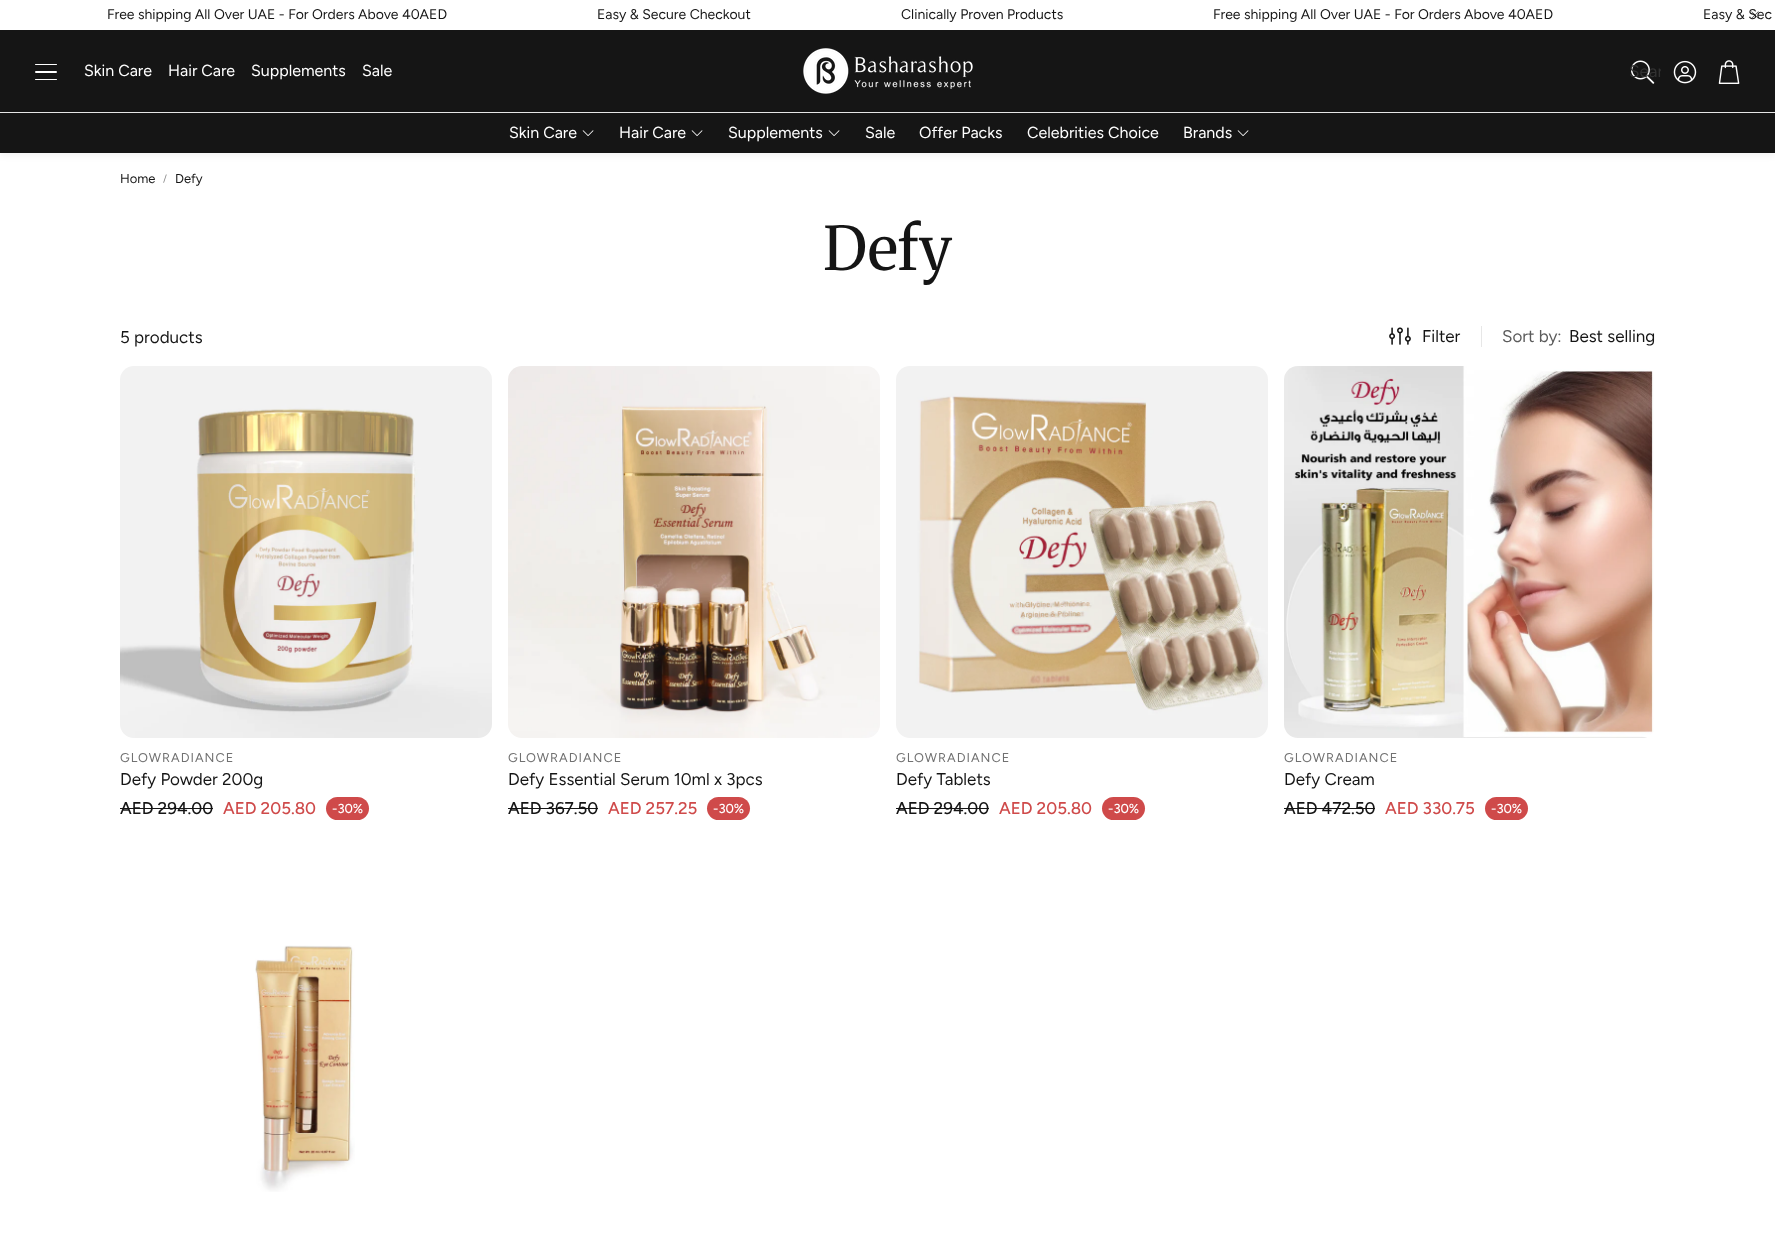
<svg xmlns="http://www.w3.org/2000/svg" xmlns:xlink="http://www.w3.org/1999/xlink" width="1775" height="1242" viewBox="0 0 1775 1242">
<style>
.cls-1{font:14px Figtree;fill:#151515}
.cls-2{font:16px Figtree;fill:#ffffff}
.cls-3{font:17px Figtree;fill:#323232}
.cls-4{font:13px Figtree;fill:#151515}
.cls-5{font:10px Figtree;fill:#8a8a8a}
.cls-6{font:60px Merriweather;letter-spacing:-0.5px;fill:#151515}
.cls-7{font:17px Figtree;fill:#151515}
.cls-8{font:17px Figtree;fill:#5b5b5b}
.cls-9{font:12.75px Figtree;letter-spacing:1px;fill:#717171}
.cls-10{font:500 17px Figtree;fill:#151515}
.cls-11{font:500 17px Figtree;fill:#cf4a4a}
.cls-12{font:500 13px Figtree;fill:#ffffff}
</style>
<defs>
<clipPath id="clip1"><rect x="1629" y="62" width="32" height="19"/></clipPath>
</defs>
<rect width="100%" height="100%" fill="#ffffff"/>
<rect fill="#151515" x="0" y="30" width="1775" height="82"/>
<rect fill="#e7e7e7" x="0" y="112" width="1775" height="1"/>
<rect fill="#ffffff" x="35" y="64" width="22" height="1" rx="0.5"/>
<rect fill="#ffffff" x="35" y="71" width="22" height="2" rx="1"/>
<rect fill="#ffffff" x="35" y="79" width="22" height="1" rx="0.5"/>
<image xlink:href="image1.png" x="803" y="48" width="170" height="46"/>
<image xlink:href="image2.png" x="1631" y="60" width="24" height="24"/>
<image xlink:href="image3.png" x="1673" y="60" width="24" height="24"/>
<image xlink:href="image4.png" x="1718" y="60" width="22" height="24"/>
<rect fill="#000000" fill-opacity="0.05" filter="blur(3px)" x="0" y="116" width="1775" height="40"/>
<rect fill="#151515" x="0" y="113" width="1775" height="40"/>
<image xlink:href="image5.png" x="582" y="130" width="12" height="6"/>
<image xlink:href="image5.png" x="691" y="130" width="12" height="6"/>
<image xlink:href="image5.png" x="828" y="130" width="12" height="6"/>
<image xlink:href="image5.png" x="1237" y="130" width="12" height="6"/>
<image xlink:href="image6.png" x="1389" y="327" width="22" height="18"/>
<rect fill="#e7e7e7" x="1481" y="326" width="1" height="21"/>
<image xlink:href="image7.png" x="120" y="366" width="372" height="372"/>
<rect fill="#151515" x="120" y="808" width="93" height="1"/>
<rect fill="#cf4a4a" x="326" y="797" width="43" height="23" rx="11.5"/>
<image xlink:href="image8.png" x="508" y="366" width="372" height="372"/>
<rect fill="#151515" x="508" y="808" width="90" height="1"/>
<rect fill="#cf4a4a" x="707" y="797" width="43" height="23" rx="11.5"/>
<image xlink:href="image9.png" x="896" y="366" width="372" height="372"/>
<rect fill="#151515" x="896" y="808" width="93" height="1"/>
<rect fill="#cf4a4a" x="1102" y="797" width="43" height="23" rx="11.5"/>
<image xlink:href="image10.png" x="1284" y="366" width="370" height="372"/>
<rect fill="#151515" x="1284" y="808" width="91" height="1"/>
<rect fill="#cf4a4a" x="1485" y="797" width="43" height="23" rx="11.5"/>
<image xlink:href="image11.png" x="255" y="945" width="100" height="247"/>
<text class="cls-1" x="107" y="19">Free shipping All Over UAE - For Orders Above 40AED</text>
<text class="cls-1" x="597" y="19">Easy &amp; Secure Checkout</text>
<text class="cls-1" x="901" y="19">Clinically Proven Products</text>
<text class="cls-1" x="1213" y="19">Free shipping All Over UAE - For Orders Above 40AED</text>
<text class="cls-1" x="1703" y="19">Easy &amp; Sec</text>
<image xlink:href="image0.png" x="1751" y="11" width="8" height="8"/>
<text class="cls-2" x="84" y="76">Skin Care</text>
<text class="cls-2" x="168" y="76">Hair Care</text>
<text class="cls-2" x="251" y="76">Supplements</text>
<text class="cls-2" x="362" y="76">Sale</text>
<g clip-path="url(#clip1)">
<text class="cls-3" x="1629" y="77">Sear</text>
</g>
<text class="cls-2" x="509" y="138">Skin Care</text>
<text class="cls-2" x="619" y="138">Hair Care</text>
<text class="cls-2" x="728" y="138">Supplements</text>
<text class="cls-2" x="865" y="138">Sale</text>
<text class="cls-2" x="919" y="138">Offer Packs</text>
<text class="cls-2" x="1027" y="138">Celebrities Choice</text>
<text class="cls-2" x="1183" y="138">Brands</text>
<text class="cls-4" x="120" y="183">Home</text>
<text class="cls-5" x="163" y="182">/</text>
<text class="cls-4" x="175" y="183">Defy</text>
<text class="cls-6" x="823" y="270">Defy</text>
<text class="cls-7" x="120" y="343">5 products</text>
<text class="cls-7" x="1422" y="342">Filter</text>
<text class="cls-8" x="1502" y="342">Sort by:</text>
<text class="cls-7" x="1569" y="342">Best selling</text>
<text class="cls-9" x="120" y="762">GLOWRADIANCE</text>
<text class="cls-7" x="120" y="785">Defy Powder 200g</text>
<text class="cls-10" x="120" y="814">AED 294.00</text>
<text class="cls-11" x="223" y="814">AED 205.80</text>
<text class="cls-12" x="332" y="813">-30%</text>
<text class="cls-9" x="508" y="762">GLOWRADIANCE</text>
<text class="cls-7" x="508" y="785">Defy Essential Serum 10ml x 3pcs</text>
<text class="cls-10" x="508" y="814">AED 367.50</text>
<text class="cls-11" x="608" y="814">AED 257.25</text>
<text class="cls-12" x="713" y="813">-30%</text>
<text class="cls-9" x="896" y="762">GLOWRADIANCE</text>
<text class="cls-7" x="896" y="785">Defy Tablets</text>
<text class="cls-10" x="896" y="814">AED 294.00</text>
<text class="cls-11" x="999" y="814">AED 205.80</text>
<text class="cls-12" x="1108" y="813">-30%</text>
<text class="cls-9" x="1284" y="762">GLOWRADIANCE</text>
<text class="cls-7" x="1284" y="785">Defy Cream</text>
<text class="cls-10" x="1284" y="814">AED 472.50</text>
<text class="cls-11" x="1385" y="814">AED 330.75</text>
<text class="cls-12" x="1491" y="813">-30%</text>
</svg>
